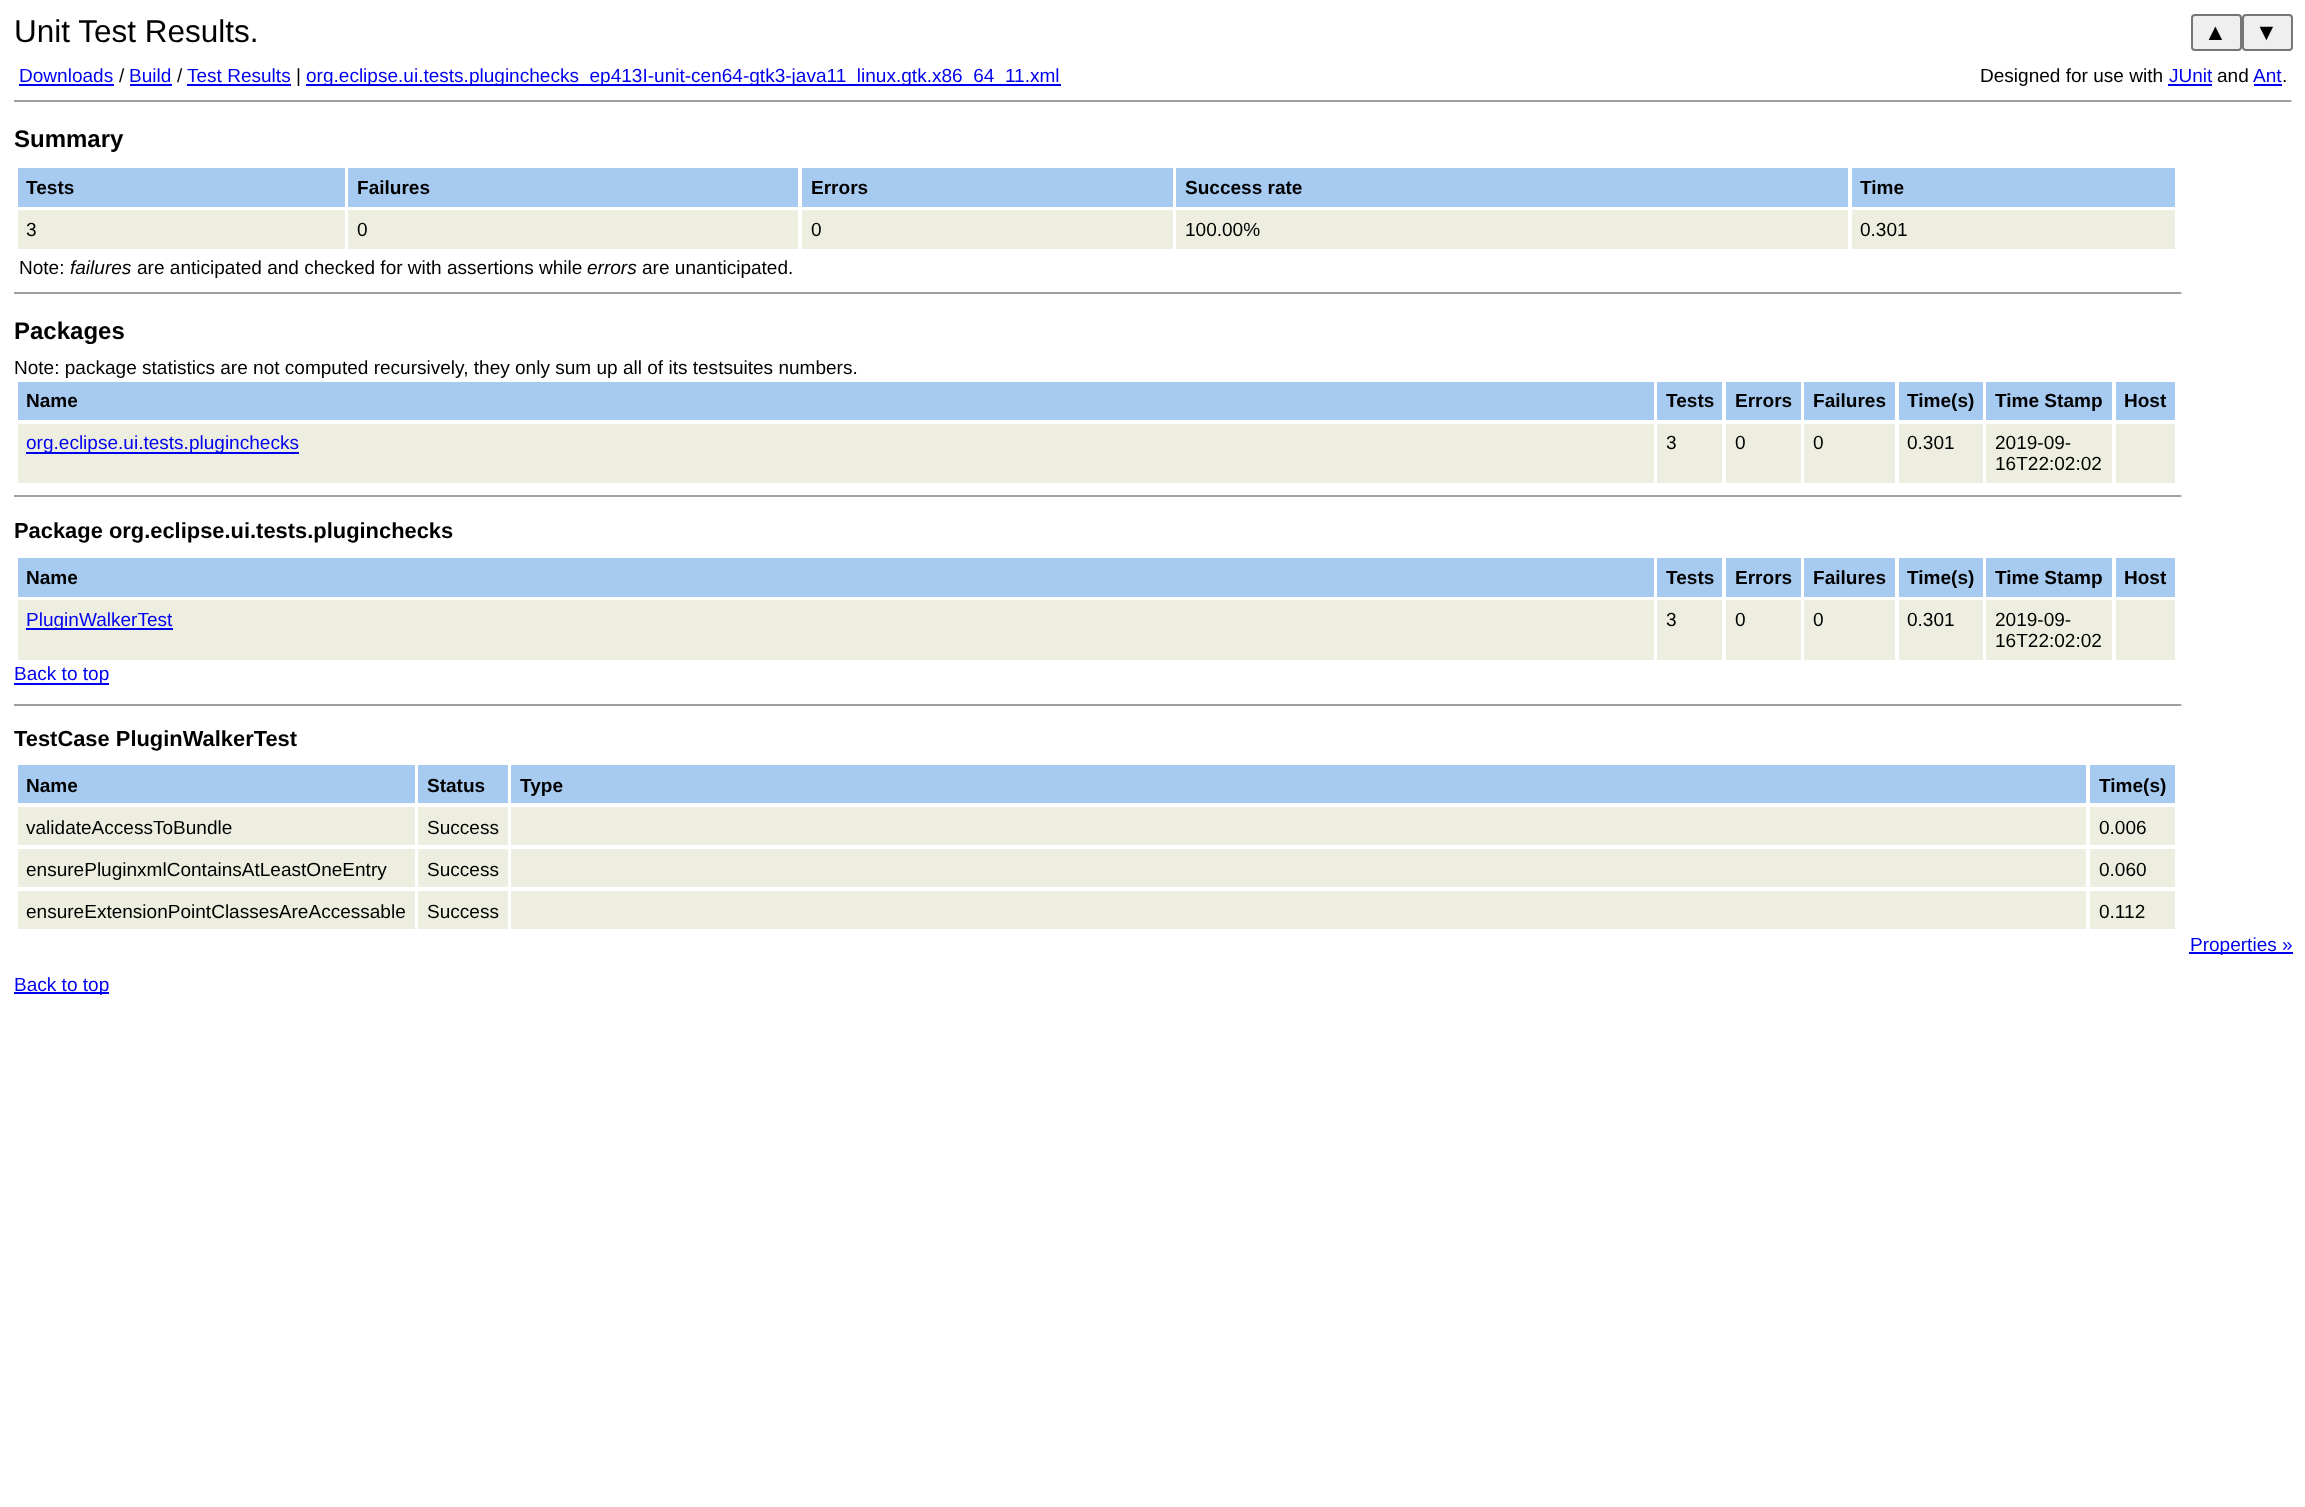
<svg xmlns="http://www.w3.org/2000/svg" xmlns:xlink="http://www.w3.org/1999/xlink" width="2305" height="1507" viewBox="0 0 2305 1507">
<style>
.cls-1{font:31.5px Liberation Sans;fill:#000000}
.cls-2{font:23px Liberation Sans;fill:#000000}
.cls-3{font:19.05px Liberation Sans;fill:#0000ee}
.cls-4{font:19.05px Liberation Sans;fill:#000000}
.cls-5{font:bold 24px Liberation Sans;fill:#000000}
.cls-6{font:bold 19.05px Liberation Sans;fill:#000000}
.cls-7{font:italic 19.05px Liberation Sans;fill:#000000}
.cls-8{font:bold 21.9px Liberation Sans;fill:#000000}
</style>
<rect width="100%" height="100%" fill="#ffffff"/>
<rect fill="#efefef" stroke="#767676" stroke-width="2" x="2192" y="15" width="49" height="35" rx="3"/>
<rect fill="#efefef" stroke="#767676" stroke-width="2" x="2243" y="15" width="49" height="35" rx="3"/>
<rect fill="#0000ee" x="19" y="84" width="95" height="2"/>
<rect fill="#0000ee" x="130" y="84" width="42" height="2"/>
<rect fill="#0000ee" x="187" y="84" width="104" height="2"/>
<rect fill="#0000ee" x="306" y="84" width="755" height="2"/>
<rect fill="#0000ee" x="2168" y="84" width="44" height="2"/>
<rect fill="#0000ee" x="2254" y="84" width="28" height="2"/>
<rect fill="#9f9f9f" x="14" y="100" width="2279" height="2"/>
<rect fill="#eeeeee" x="2291" y="100" width="2" height="2"/>
<rect fill="#a6caf0" x="18" y="168" width="327" height="39"/>
<rect fill="#a6caf0" x="348" y="168" width="450" height="39"/>
<rect fill="#a6caf0" x="802" y="168" width="371" height="39"/>
<rect fill="#a6caf0" x="1176" y="168" width="672" height="39"/>
<rect fill="#a6caf0" x="1852" y="168" width="323" height="39"/>
<rect fill="#eeeee0" x="18" y="210" width="327" height="39"/>
<rect fill="#eeeee0" x="348" y="210" width="450" height="39"/>
<rect fill="#eeeee0" x="802" y="210" width="371" height="39"/>
<rect fill="#eeeee0" x="1176" y="210" width="672" height="39"/>
<rect fill="#eeeee0" x="1852" y="210" width="323" height="39"/>
<rect fill="#9f9f9f" x="14" y="292" width="2168" height="2"/>
<rect fill="#eeeeee" x="2181" y="292" width="2" height="2"/>
<rect fill="#a6caf0" x="18" y="382" width="1636" height="38"/>
<rect fill="#a6caf0" x="1657" y="382" width="65" height="38"/>
<rect fill="#a6caf0" x="1726" y="382" width="75" height="38"/>
<rect fill="#a6caf0" x="1804" y="382" width="91" height="38"/>
<rect fill="#a6caf0" x="1899" y="382" width="84" height="38"/>
<rect fill="#a6caf0" x="1986" y="382" width="126" height="38"/>
<rect fill="#a6caf0" x="2116" y="382" width="59" height="38"/>
<rect fill="#eeeee0" x="18" y="424" width="1636" height="59"/>
<rect fill="#0000ee" x="26" y="452" width="273" height="2"/>
<rect fill="#eeeee0" x="1657" y="424" width="65" height="59"/>
<rect fill="#eeeee0" x="1726" y="424" width="75" height="59"/>
<rect fill="#eeeee0" x="1804" y="424" width="91" height="59"/>
<rect fill="#eeeee0" x="1899" y="424" width="84" height="59"/>
<rect fill="#eeeee0" x="1986" y="424" width="126" height="59"/>
<rect fill="#eeeee0" x="2116" y="424" width="59" height="59"/>
<rect fill="#9f9f9f" x="14" y="495" width="2168" height="2"/>
<rect fill="#eeeeee" x="2181" y="495" width="2" height="2"/>
<rect fill="#a6caf0" x="18" y="558" width="1636" height="39"/>
<rect fill="#a6caf0" x="1657" y="558" width="65" height="39"/>
<rect fill="#a6caf0" x="1726" y="558" width="75" height="39"/>
<rect fill="#a6caf0" x="1804" y="558" width="91" height="39"/>
<rect fill="#a6caf0" x="1899" y="558" width="84" height="39"/>
<rect fill="#a6caf0" x="1986" y="558" width="126" height="39"/>
<rect fill="#a6caf0" x="2116" y="558" width="59" height="39"/>
<rect fill="#eeeee0" x="18" y="600" width="1636" height="60"/>
<rect fill="#0000ee" x="26" y="628" width="147" height="2"/>
<rect fill="#eeeee0" x="1657" y="600" width="65" height="60"/>
<rect fill="#eeeee0" x="1726" y="600" width="75" height="60"/>
<rect fill="#eeeee0" x="1804" y="600" width="91" height="60"/>
<rect fill="#eeeee0" x="1899" y="600" width="84" height="60"/>
<rect fill="#eeeee0" x="1986" y="600" width="126" height="60"/>
<rect fill="#eeeee0" x="2116" y="600" width="59" height="60"/>
<rect fill="#0000ee" x="14" y="683" width="95" height="2"/>
<rect fill="#9f9f9f" x="14" y="704" width="2168" height="2"/>
<rect fill="#eeeeee" x="2181" y="704" width="2" height="2"/>
<rect fill="#a6caf0" x="18" y="765" width="397" height="38"/>
<rect fill="#a6caf0" x="418" y="765" width="90" height="38"/>
<rect fill="#a6caf0" x="511" y="765" width="1575" height="38"/>
<rect fill="#a6caf0" x="2090" y="765" width="85" height="38"/>
<rect fill="#eeeee0" x="18" y="807" width="397" height="38"/>
<rect fill="#eeeee0" x="418" y="807" width="90" height="38"/>
<rect fill="#eeeee0" x="511" y="807" width="1575" height="38"/>
<rect fill="#eeeee0" x="2090" y="807" width="85" height="38"/>
<rect fill="#eeeee0" x="18" y="849" width="397" height="38"/>
<rect fill="#eeeee0" x="418" y="849" width="90" height="38"/>
<rect fill="#eeeee0" x="511" y="849" width="1575" height="38"/>
<rect fill="#eeeee0" x="2090" y="849" width="85" height="38"/>
<rect fill="#eeeee0" x="18" y="891" width="397" height="38"/>
<rect fill="#eeeee0" x="418" y="891" width="90" height="38"/>
<rect fill="#eeeee0" x="511" y="891" width="1575" height="38"/>
<rect fill="#eeeee0" x="2090" y="891" width="85" height="38"/>
<rect fill="#0000ee" x="2189" y="952" width="104" height="2"/>
<rect fill="#0000ee" x="14" y="992" width="95" height="2"/>
<text class="cls-1" x="14" y="42">Unit Test Results.</text>
<text class="cls-2" x="2204" y="40">▲</text>
<text class="cls-2" x="2255" y="40">▼</text>
<text class="cls-3" x="19" y="82">Downloads</text>
<text class="cls-4" x="119" y="82">/</text>
<text class="cls-3" x="129" y="82">Build</text>
<text class="cls-4" x="177" y="82">/</text>
<text class="cls-3" x="187" y="82">Test Results</text>
<text class="cls-4" x="296" y="82">|</text>
<text class="cls-3" x="306" y="82">org.eclipse.ui.tests.pluginchecks_ep413I-unit-cen64-gtk3-java11_linux.gtk.x86_64_11.xml</text>
<text class="cls-4" x="1980" y="82">Designed for use with</text>
<text class="cls-3" x="2169" y="82">JUnit</text>
<text class="cls-4" x="2217" y="82">and</text>
<text class="cls-3" x="2253" y="82">Ant</text>
<text class="cls-4" x="2282" y="82">.</text>
<text class="cls-5" x="14" y="147">Summary</text>
<text class="cls-6" x="26" y="194">Tests</text>
<text class="cls-6" x="357" y="194">Failures</text>
<text class="cls-6" x="811" y="194">Errors</text>
<text class="cls-6" x="1185" y="194">Success rate</text>
<text class="cls-6" x="1860" y="194">Time</text>
<text class="cls-4" x="26" y="236">3</text>
<text class="cls-4" x="357" y="236">0</text>
<text class="cls-4" x="811" y="236">0</text>
<text class="cls-4" x="1185" y="236">100.00%</text>
<text class="cls-4" x="1860" y="236">0.301</text>
<text class="cls-4" x="19" y="274">Note:</text>
<text class="cls-7" x="70" y="274">failures</text>
<text class="cls-4" x="137" y="274">are anticipated and checked for with assertions while</text>
<text class="cls-7" x="587" y="274">errors</text>
<text class="cls-4" x="642" y="274">are unanticipated.</text>
<text class="cls-5" x="14" y="339">Packages</text>
<text class="cls-4" x="14" y="374">Note: package statistics are not computed recursively, they only sum up all of its testsuites numbers.</text>
<text class="cls-6" x="26" y="407">Name</text>
<text class="cls-6" x="1666" y="407">Tests</text>
<text class="cls-6" x="1735" y="407">Errors</text>
<text class="cls-6" x="1813" y="407">Failures</text>
<text class="cls-6" x="1907" y="407">Time(s)</text>
<text class="cls-6" x="1995" y="407">Time Stamp</text>
<text class="cls-6" x="2124" y="407">Host</text>
<text class="cls-3" x="26" y="449">org.eclipse.ui.tests.pluginchecks</text>
<text class="cls-4" x="1666" y="449">3</text>
<text class="cls-4" x="1735" y="449">0</text>
<text class="cls-4" x="1813" y="449">0</text>
<text class="cls-4" x="1907" y="449">0.301</text>
<text class="cls-4"><tspan x="1995" y="449">2019-09-</tspan><tspan x="1995" y="470">16T22:02:02</tspan></text>
<text class="cls-8" x="14" y="538">Package org.eclipse.ui.tests.pluginchecks</text>
<text class="cls-6" x="26" y="584">Name</text>
<text class="cls-6" x="1666" y="584">Tests</text>
<text class="cls-6" x="1735" y="584">Errors</text>
<text class="cls-6" x="1813" y="584">Failures</text>
<text class="cls-6" x="1907" y="584">Time(s)</text>
<text class="cls-6" x="1995" y="584">Time Stamp</text>
<text class="cls-6" x="2124" y="584">Host</text>
<text class="cls-3" x="26" y="626">PluginWalkerTest</text>
<text class="cls-4" x="1666" y="626">3</text>
<text class="cls-4" x="1735" y="626">0</text>
<text class="cls-4" x="1813" y="626">0</text>
<text class="cls-4" x="1907" y="626">0.301</text>
<text class="cls-4"><tspan x="1995" y="626">2019-09-</tspan><tspan x="1995" y="647">16T22:02:02</tspan></text>
<text class="cls-3" x="14" y="680">Back to top</text>
<text class="cls-8" x="14" y="746">TestCase PluginWalkerTest</text>
<text class="cls-6" x="26" y="792">Name</text>
<text class="cls-6" x="427" y="792">Status</text>
<text class="cls-6" x="520" y="792">Type</text>
<text class="cls-6" x="2099" y="792">Time(s)</text>
<text class="cls-4" x="26" y="834">validateAccessToBundle</text>
<text class="cls-4" x="427" y="834">Success</text>
<text class="cls-4" x="2099" y="834">0.006</text>
<text class="cls-4" x="26" y="876">ensurePluginxmlContainsAtLeastOneEntry</text>
<text class="cls-4" x="427" y="876">Success</text>
<text class="cls-4" x="2099" y="876">0.060</text>
<text class="cls-4" x="26" y="918">ensureExtensionPointClassesAreAccessable</text>
<text class="cls-4" x="427" y="918">Success</text>
<text class="cls-4" x="2099" y="918">0.112</text>
<text class="cls-3" x="2190" y="951">Properties »</text>
<text class="cls-3" x="14" y="991">Back to top</text>
</svg>
